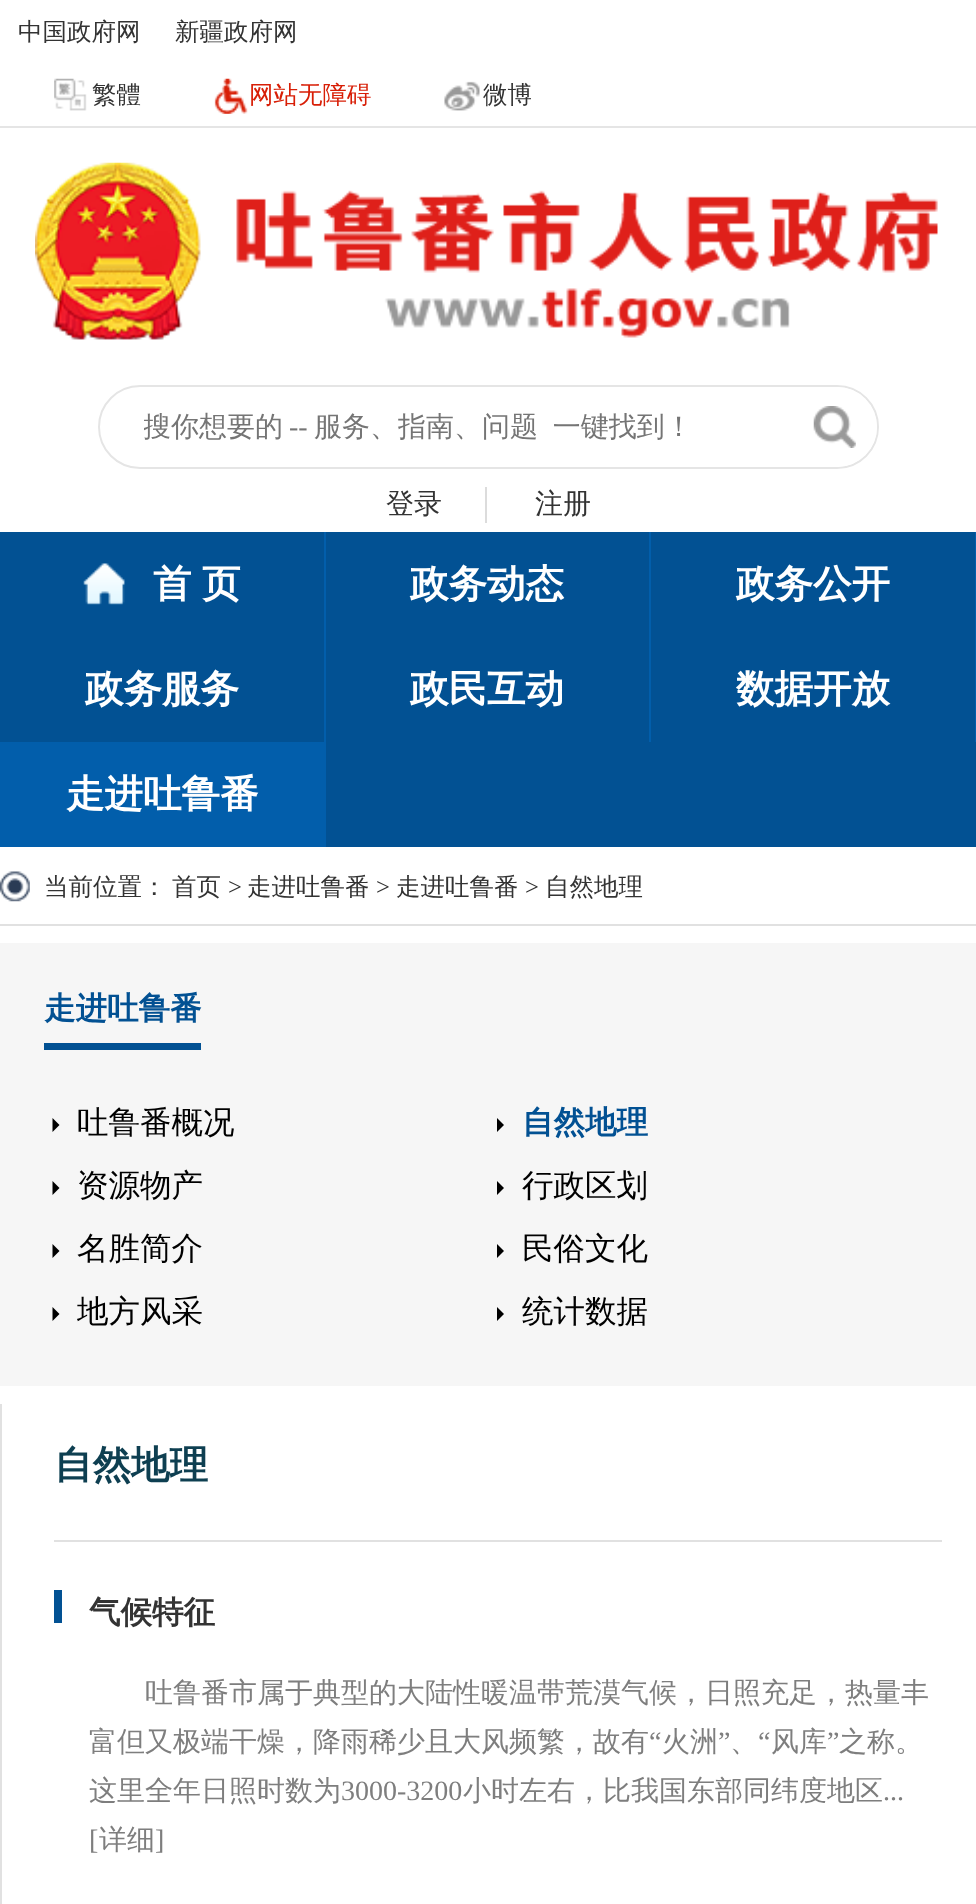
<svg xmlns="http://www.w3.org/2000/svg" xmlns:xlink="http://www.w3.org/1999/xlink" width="976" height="1904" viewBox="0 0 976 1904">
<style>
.cls-1{font:500 24.5px WenQuanYi Zen Hei;fill:#333333}
.cls-2{font:500 24.5px WenQuanYi Zen Hei;fill:#d81e06}
.cls-3{font:500 28px WenQuanYi Zen Hei;fill:#757575}
.cls-4{font:28px Liberation Serif;fill:#757575}
.cls-5{font:500 28px WenQuanYi Zen Hei;fill:#333333}
.cls-6{font:bold 38.5px WenQuanYi Zen Hei;fill:#ffffff}
.cls-7{font:24.5px Liberation Serif;fill:#333333}
.cls-8{font:bold 31.5px WenQuanYi Zen Hei;fill:#025193}
.cls-9{font:500 31.5px WenQuanYi Zen Hei;fill:#000000}
.cls-10{font:bold 38.5px WenQuanYi Zen Hei;fill:#0e3f51}
.cls-11{font:bold 31.5px WenQuanYi Zen Hei;fill:#333333}
.cls-12{font:500 28px WenQuanYi Zen Hei;fill:#7e7e7e}
.cls-13{font:28px Liberation Serif;fill:#7e7e7e}
</style>
<defs>
<clipPath id="clip1"><rect x="144" y="410" width="729" height="36"/></clipPath>
</defs>
<rect width="100%" height="100%" fill="#ffffff"/>
<rect fill="#e5e5e5" x="0" y="126" width="976" height="2"/>
<image xlink:href="image0.png" x="54" y="78" width="33" height="33"/>
<image xlink:href="image1.png" x="214" y="78" width="34" height="36"/>
<image xlink:href="image2.png" x="444" y="81" width="36" height="30"/>
<image xlink:href="image3.png" x="35" y="162" width="903" height="178"/>
<rect fill="none" stroke="#e5e5e5" stroke-width="2" x="99" y="386" width="779" height="82" rx="41"/>
<rect fill="#ffffff" x="793" y="387" width="84" height="80" rx="40"/>
<image xlink:href="image4.png" x="813" y="406" width="43" height="42"/>
<rect fill="#dcdcdc" x="485" y="487" width="2" height="36"/>
<rect fill="#025193" x="0" y="532" width="976" height="315"/>
<rect fill="#025eab" x="324" y="532" width="2" height="210"/>
<image xlink:href="image5.png" x="83" y="563" width="42" height="42"/>
<rect fill="#025eab" x="649" y="532" width="2" height="210"/>
<rect fill="#025eab" x="975" y="532" width="1" height="210"/>
<rect fill="#025eab" x="0" y="742" width="326" height="105"/>
<image xlink:href="image6.png" x="0" y="871" width="30" height="31"/>
<rect fill="#e1e1e1" x="0" y="924" width="976" height="2"/>
<rect fill="#f6f6f6" x="0" y="943" width="976" height="443"/>
<rect fill="#025193" x="44" y="1043" width="157" height="7"/>
<path fill="#000000" d="M52.5 1132V1118L59.5 1125Z"/>
<path fill="#000000" d="M497 1132V1118L504 1125Z"/>
<path fill="#000000" d="M52.5 1195V1181L59.5 1188Z"/>
<path fill="#000000" d="M497 1195V1181L504 1188Z"/>
<path fill="#000000" d="M52.5 1258V1244L59.5 1251Z"/>
<path fill="#000000" d="M497 1258V1244L504 1251Z"/>
<path fill="#000000" d="M52.5 1321V1307L59.5 1314Z"/>
<path fill="#000000" d="M497 1321V1307L504 1314Z"/>
<rect fill="#e1e1e1" x="0" y="1404" width="2" height="500"/>
<rect fill="#e1e1e1" x="54" y="1540" width="888" height="2"/>
<rect fill="#025193" x="54" y="1590" width="8" height="33"/>
<text class="cls-1" x="18" y="40">中国政府网</text>
<text class="cls-1" x="175" y="40">新疆政府网</text>
<text class="cls-1" x="92" y="103">繁體</text>
<text class="cls-2" x="249" y="103">网站无障碍</text>
<text class="cls-1" x="483" y="103">微博</text>
<g clip-path="url(#clip1)">
<text class="cls-3" x="143" y="436">搜你想要的</text>
</g>
<text class="cls-4" x="289" y="436">--</text>
<text class="cls-3" xml:space="preserve" x="314" y="436" word-spacing="-1">服务、指南、问题  一键找到！</text>
<text class="cls-5" x="386" y="513">登录</text>
<text class="cls-5" x="535" y="513">注册</text>
<text class="cls-6" x="153" y="597">首</text>
<text class="cls-6" x="202" y="597">页</text>
<text class="cls-6" x="410" y="597">政务动态</text>
<text class="cls-6" x="736" y="597">政务公开</text>
<text class="cls-6" x="85" y="702">政务服务</text>
<text class="cls-6" x="410" y="702">政民互动</text>
<text class="cls-6" x="736" y="702">数据开放</text>
<text class="cls-6" x="66" y="807">走进吐鲁番</text>
<text class="cls-1" x="44" y="895">当前位置：</text>
<text class="cls-1" x="172" y="895">首页</text>
<text class="cls-7" x="228" y="895">&gt;</text>
<text class="cls-1" x="247" y="895">走进吐鲁番</text>
<text class="cls-7" x="376" y="895">&gt;</text>
<text class="cls-1" x="396" y="895">走进吐鲁番</text>
<text class="cls-7" x="525" y="895">&gt;</text>
<text class="cls-1" x="545" y="895">自然地理</text>
<text class="cls-8" x="44" y="1019">走进吐鲁番</text>
<text class="cls-9" x="77" y="1133">吐鲁番概况</text>
<text class="cls-8" x="522" y="1133">自然地理</text>
<text class="cls-9" x="77" y="1196">资源物产</text>
<text class="cls-9" x="522" y="1196">行政区划</text>
<text class="cls-9" x="77" y="1259">名胜简介</text>
<text class="cls-9" x="522" y="1259">民俗文化</text>
<text class="cls-9" x="77" y="1322">地方风采</text>
<text class="cls-9" x="522" y="1322">统计数据</text>
<text class="cls-10" x="54" y="1478">自然地理</text>
<text class="cls-11" x="89" y="1623">气候特征</text>
<text class="cls-12" x="145" y="1702">吐鲁番市属于典型的大陆性暖温带荒漠气候，日照充足，热量丰</text>
<text class="cls-12" x="89" y="1751">富但又极端干燥，降雨稀少且大风频繁，故有</text>
<text class="cls-13" x="649" y="1751">“</text>
<text class="cls-12" x="662" y="1751">火洲</text>
<text class="cls-13" x="718" y="1751">”</text>
<text class="cls-13" x="758" y="1751">“</text>
<text class="cls-12" x="771" y="1751">风库</text>
<text class="cls-13" x="827" y="1751">”</text>
<text class="cls-12" x="839" y="1751">之称。</text>
<text class="cls-12" x="730" y="1751">、</text>
<text class="cls-12" x="89" y="1800">这里全年日照时数为</text>
<text class="cls-13" x="341" y="1800">3000-3200</text>
<text class="cls-12" x="463" y="1800">小时左右，比我国东部同纬度地区</text>
<text class="cls-13" x="883" y="1800">...</text>
<text class="cls-13" x="89" y="1849">[</text>
<text class="cls-12" x="99" y="1849">详细</text>
<text class="cls-13" x="155" y="1849">]</text>
</svg>
